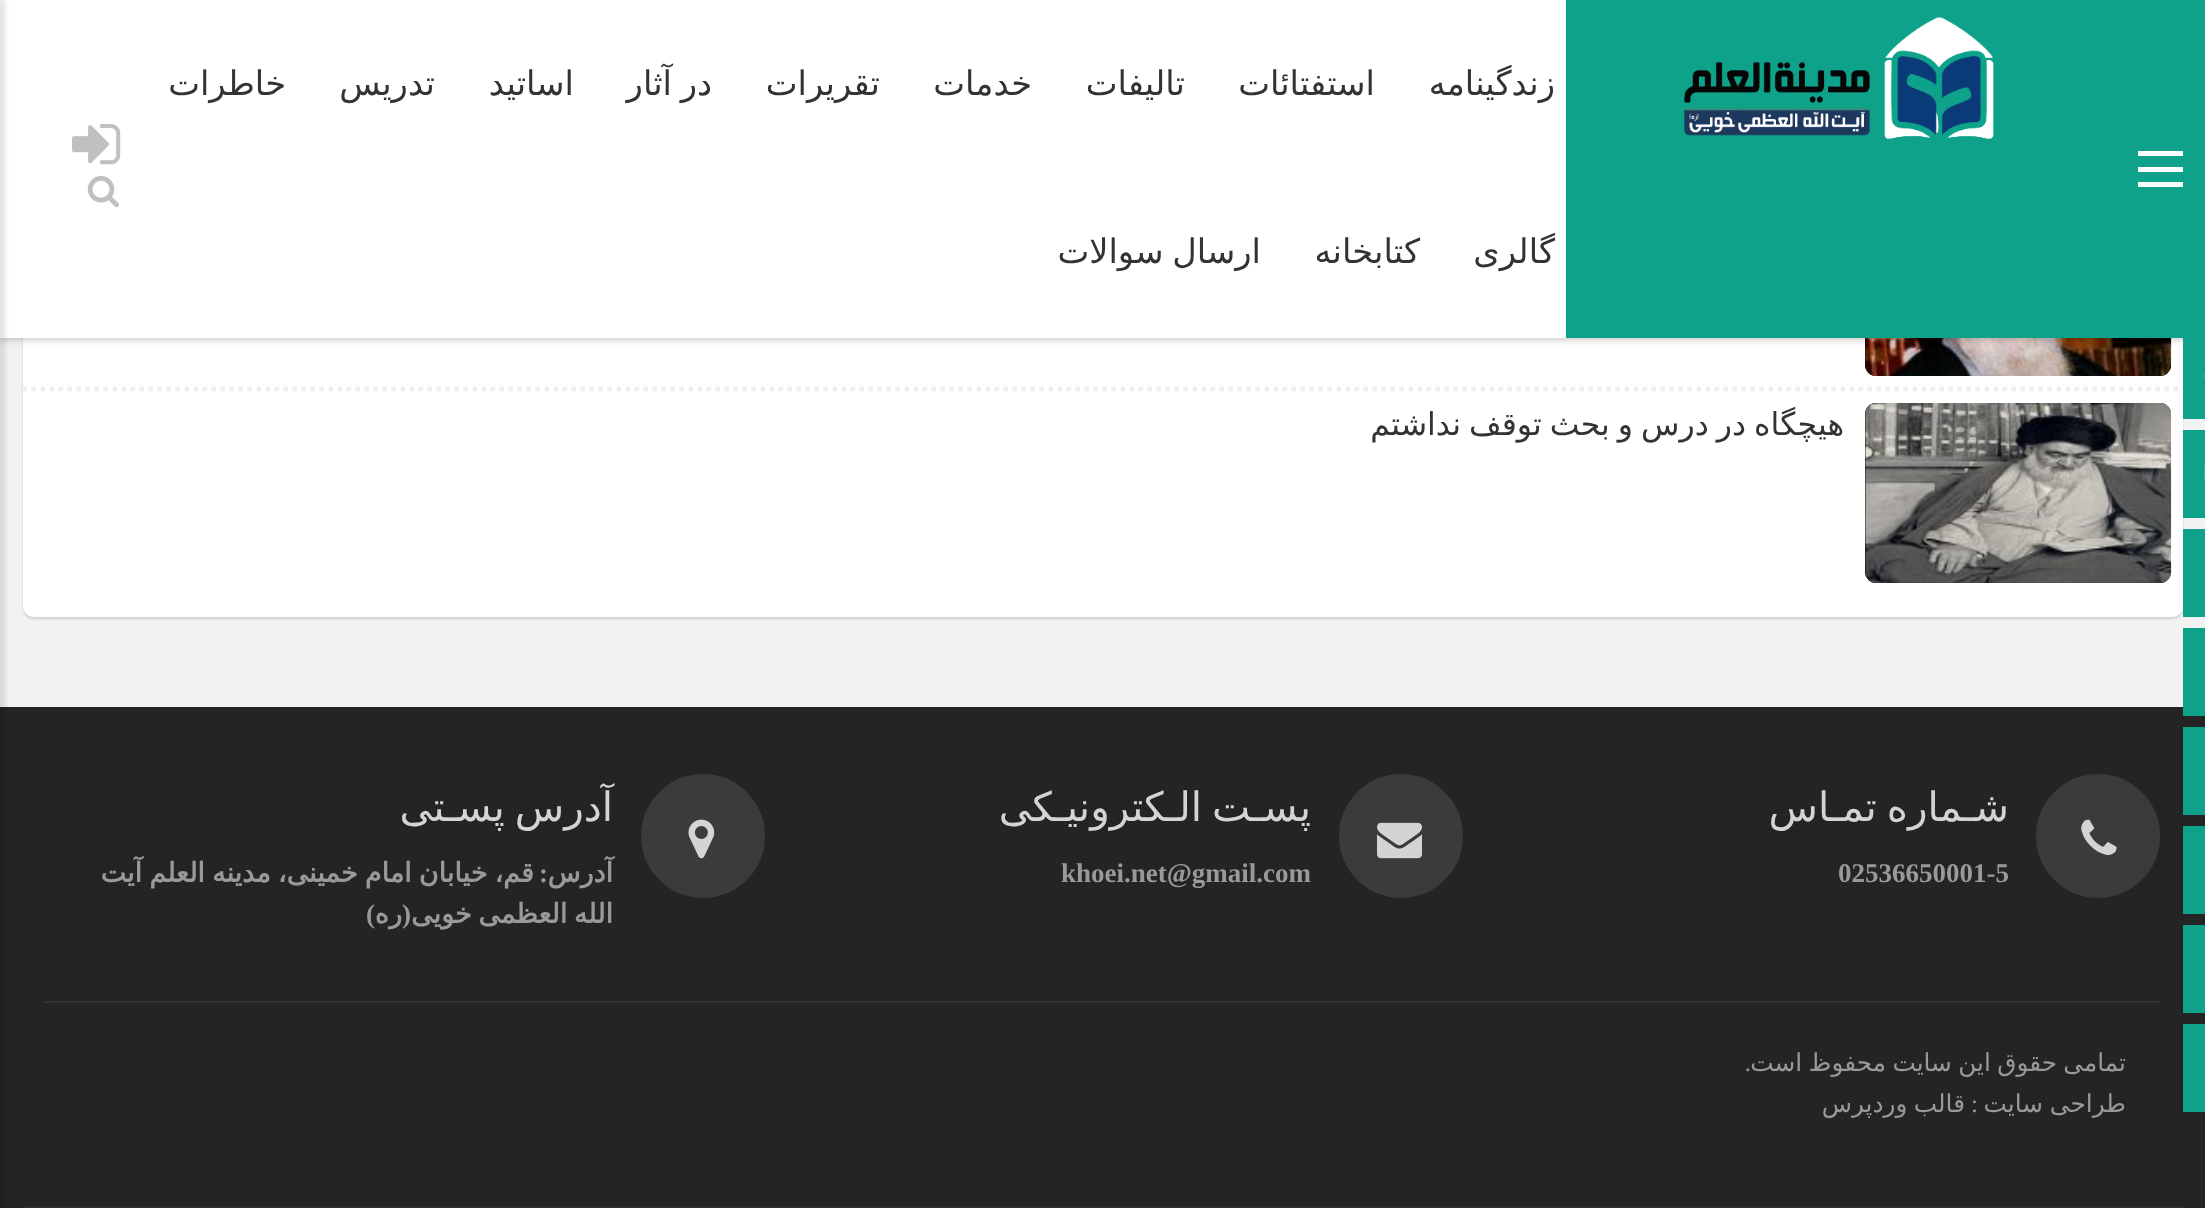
<svg xmlns="http://www.w3.org/2000/svg" xmlns:xlink="http://www.w3.org/1999/xlink" width="2205" height="1208" viewBox="0 0 2205 1208">
<style>
.cls-1{font:33.75px DejaVu Sans;direction:rtl;fill:#333333}
.cls-2{font:31.5px DejaVu Sans;direction:rtl;fill:#333333}
.cls-3{font:40.5px DejaVu Sans;direction:rtl;fill:#d4d4d4}
.cls-4{font:bold 27px Liberation Serif;fill:#999999}
.cls-5{font:bold 27px DejaVu Sans;direction:rtl;fill:#999999}
.cls-6{font:bold 27px Liberation Serif;direction:rtl;fill:#999999}
.cls-7{font:24.75px DejaVu Sans;direction:rtl;fill:#999999}
.cls-8{font:24.75px Liberation Serif;direction:rtl;fill:#999999}
</style>
<defs>
<clipPath id="clip1"><rect x="23" y="0" width="2160" height="617"/></clipPath>
</defs>
<rect width="100%" height="100%" fill="#f2f2f2"/>
<rect fill="#1c2540" fill-opacity="0.16" filter="blur(1px)" x="23" y="-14" width="2160" height="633" rx="11"/>
<path fill="#ffffff" d="M23-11H2183V606C2183 612 2178 617 2172 617H34C28 617 23 612 23 606Z"/>
<rect fill="#000000" x="1865" y="196" width="306" height="180" rx="11"/>
<image xlink:href="image5.png" x="1865" y="338" width="307" height="38"/>
<rect fill="#000000" fill-opacity="0.2" filter="blur(3.5px)" x="-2" y="-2" width="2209" height="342"/>
<rect fill="#ffffff" x="0" y="0" width="1566" height="338"/>
<rect fill="#0ea28b" x="1566" y="0" width="639" height="338"/>
<image xlink:href="image0.png" x="1684" y="17" width="310" height="122"/>
<rect fill="#ffffff" x="2138" y="151" width="45" height="5"/>
<rect fill="#ffffff" x="2138" y="167" width="45" height="5"/>
<rect fill="#ffffff" x="2138" y="182" width="45" height="5"/>
<image xlink:href="image1.png" x="72" y="124" width="49" height="41"/>
<image xlink:href="image2.png" x="87" y="176" width="32" height="32"/>
<rect fill="#0ea28b" x="2183" y="338" width="22" height="81"/>
<image xlink:href="image3.png" x="2204" y="373" width="1" height="7"/>
<rect fill="#0ea28b" x="2183" y="430" width="22" height="88"/>
<image xlink:href="image4.png" x="2204" y="461" width="1" height="24"/>
<rect fill="#0ea28b" x="2183" y="529" width="22" height="88"/>
<rect fill="#242424" x="0" y="707" width="2205" height="501"/>
<rect fill="#0ea28b" x="2183" y="628" width="22" height="88"/>
<rect fill="#0ea28b" x="2183" y="727" width="22" height="88"/>
<rect fill="#0ea28b" x="2183" y="826" width="22" height="88"/>
<rect fill="#0ea28b" x="2183" y="925" width="22" height="88"/>
<rect fill="#0ea28b" x="2183" y="1024" width="22" height="88"/>
<rect fill="#000000" fill-opacity="0.2" filter="blur(3.5px)" x="-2" y="-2" width="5" height="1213"/>
<g clip-path="url(#clip1)">
<path fill="none" stroke="#eeeeee" stroke-width="4.5" stroke-dasharray="4.5 4.5" d="M22.5 389H2182.5"/>
</g>
<rect fill="#000000" x="1865" y="403" width="306" height="180" rx="11"/>
<image xlink:href="image6.png" x="1865" y="403" width="307" height="180"/>
<rect fill="#2f2f2f" x="23" y="1206" width="2160" height="2"/>
<rect fill="#333333" x="45" y="1001" width="2115" height="2"/>
<circle fill="#3b3b3b" stroke="#3b3b3b" stroke-width="5" cx="2098" cy="836" r="59.5"/>
<image xlink:href="image7.png" x="2081" y="819" width="36" height="36"/>
<circle fill="#3b3b3b" stroke="#3b3b3b" stroke-width="5" cx="1401" cy="836" r="59.5"/>
<image xlink:href="image8.png" x="1377" y="822" width="45" height="37"/>
<circle fill="#3b3b3b" stroke="#3b3b3b" stroke-width="5" cx="703" cy="836" r="59.5"/>
<image xlink:href="image9.png" x="688" y="819" width="27" height="40"/>
<text class="cls-1" x="1555" y="95">زندگینامه</text>
<text class="cls-1" x="1375" y="95">استفتائات</text>
<text class="cls-1" x="1185" y="95">تالیفات</text>
<text class="cls-1" x="1032" y="95">خدمات</text>
<text class="cls-1" x="880" y="95">تقریرات</text>
<text class="cls-1" x="712" y="95" word-spacing="-2">در آثار</text>
<text class="cls-1" x="574" y="95">اساتید</text>
<text class="cls-1" x="435" y="95">تدریس</text>
<text class="cls-1" x="286" y="95">خاطرات</text>
<text class="cls-1" x="1555" y="263">گالری</text>
<text class="cls-1" x="1420" y="263">کتابخانه</text>
<text class="cls-1" x="1261" y="263" word-spacing="-2">ارسال سوالات</text>
<text class="cls-2" x="1844" y="435" word-spacing="-2">هیچگاه در درس و بحث توقف نداشتم</text>
<text class="cls-3" x="2009" y="821" word-spacing="-3">شـماره تمـاس</text>
<text class="cls-4" x="1838" y="882">02536650001-5</text>
<text class="cls-3" x="1311" y="821" word-spacing="-3">پسـت الـکترونیـکی</text>
<text class="cls-4" x="1061" y="882">khoei.net@gmail.com</text>
<text class="cls-3" x="613" y="821" word-spacing="-3">آدرس پسـتی</text>
<text class="cls-5" x="613" y="882">آدرس</text>
<text class="cls-5" x="534" y="882" word-spacing="-1.5">قم، خیابان امام خمینی، مدینه العلم آیت</text>
<text class="cls-6" x="548" y="882">:</text>
<text class="cls-5" x="613" y="923" word-spacing="-2">الله العظمی خویی</text>
<text class="cls-6" x="411" y="923">(</text>
<text class="cls-5" x="402" y="923">ره</text>
<text class="cls-6" x="375" y="923">)</text>
<text class="cls-7" x="2126" y="1071" word-spacing="-1.5">تمامی حقوق این سایت محفوظ است</text>
<text class="cls-8" x="1751" y="1071">.</text>
<text class="cls-7" x="2126" y="1112" word-spacing="-1">طراحی سایت</text>
<text class="cls-8" x="1978" y="1112">:</text>
<text class="cls-7" x="1965" y="1112" word-spacing="-1.5">قالب وردپرس</text>
</svg>
